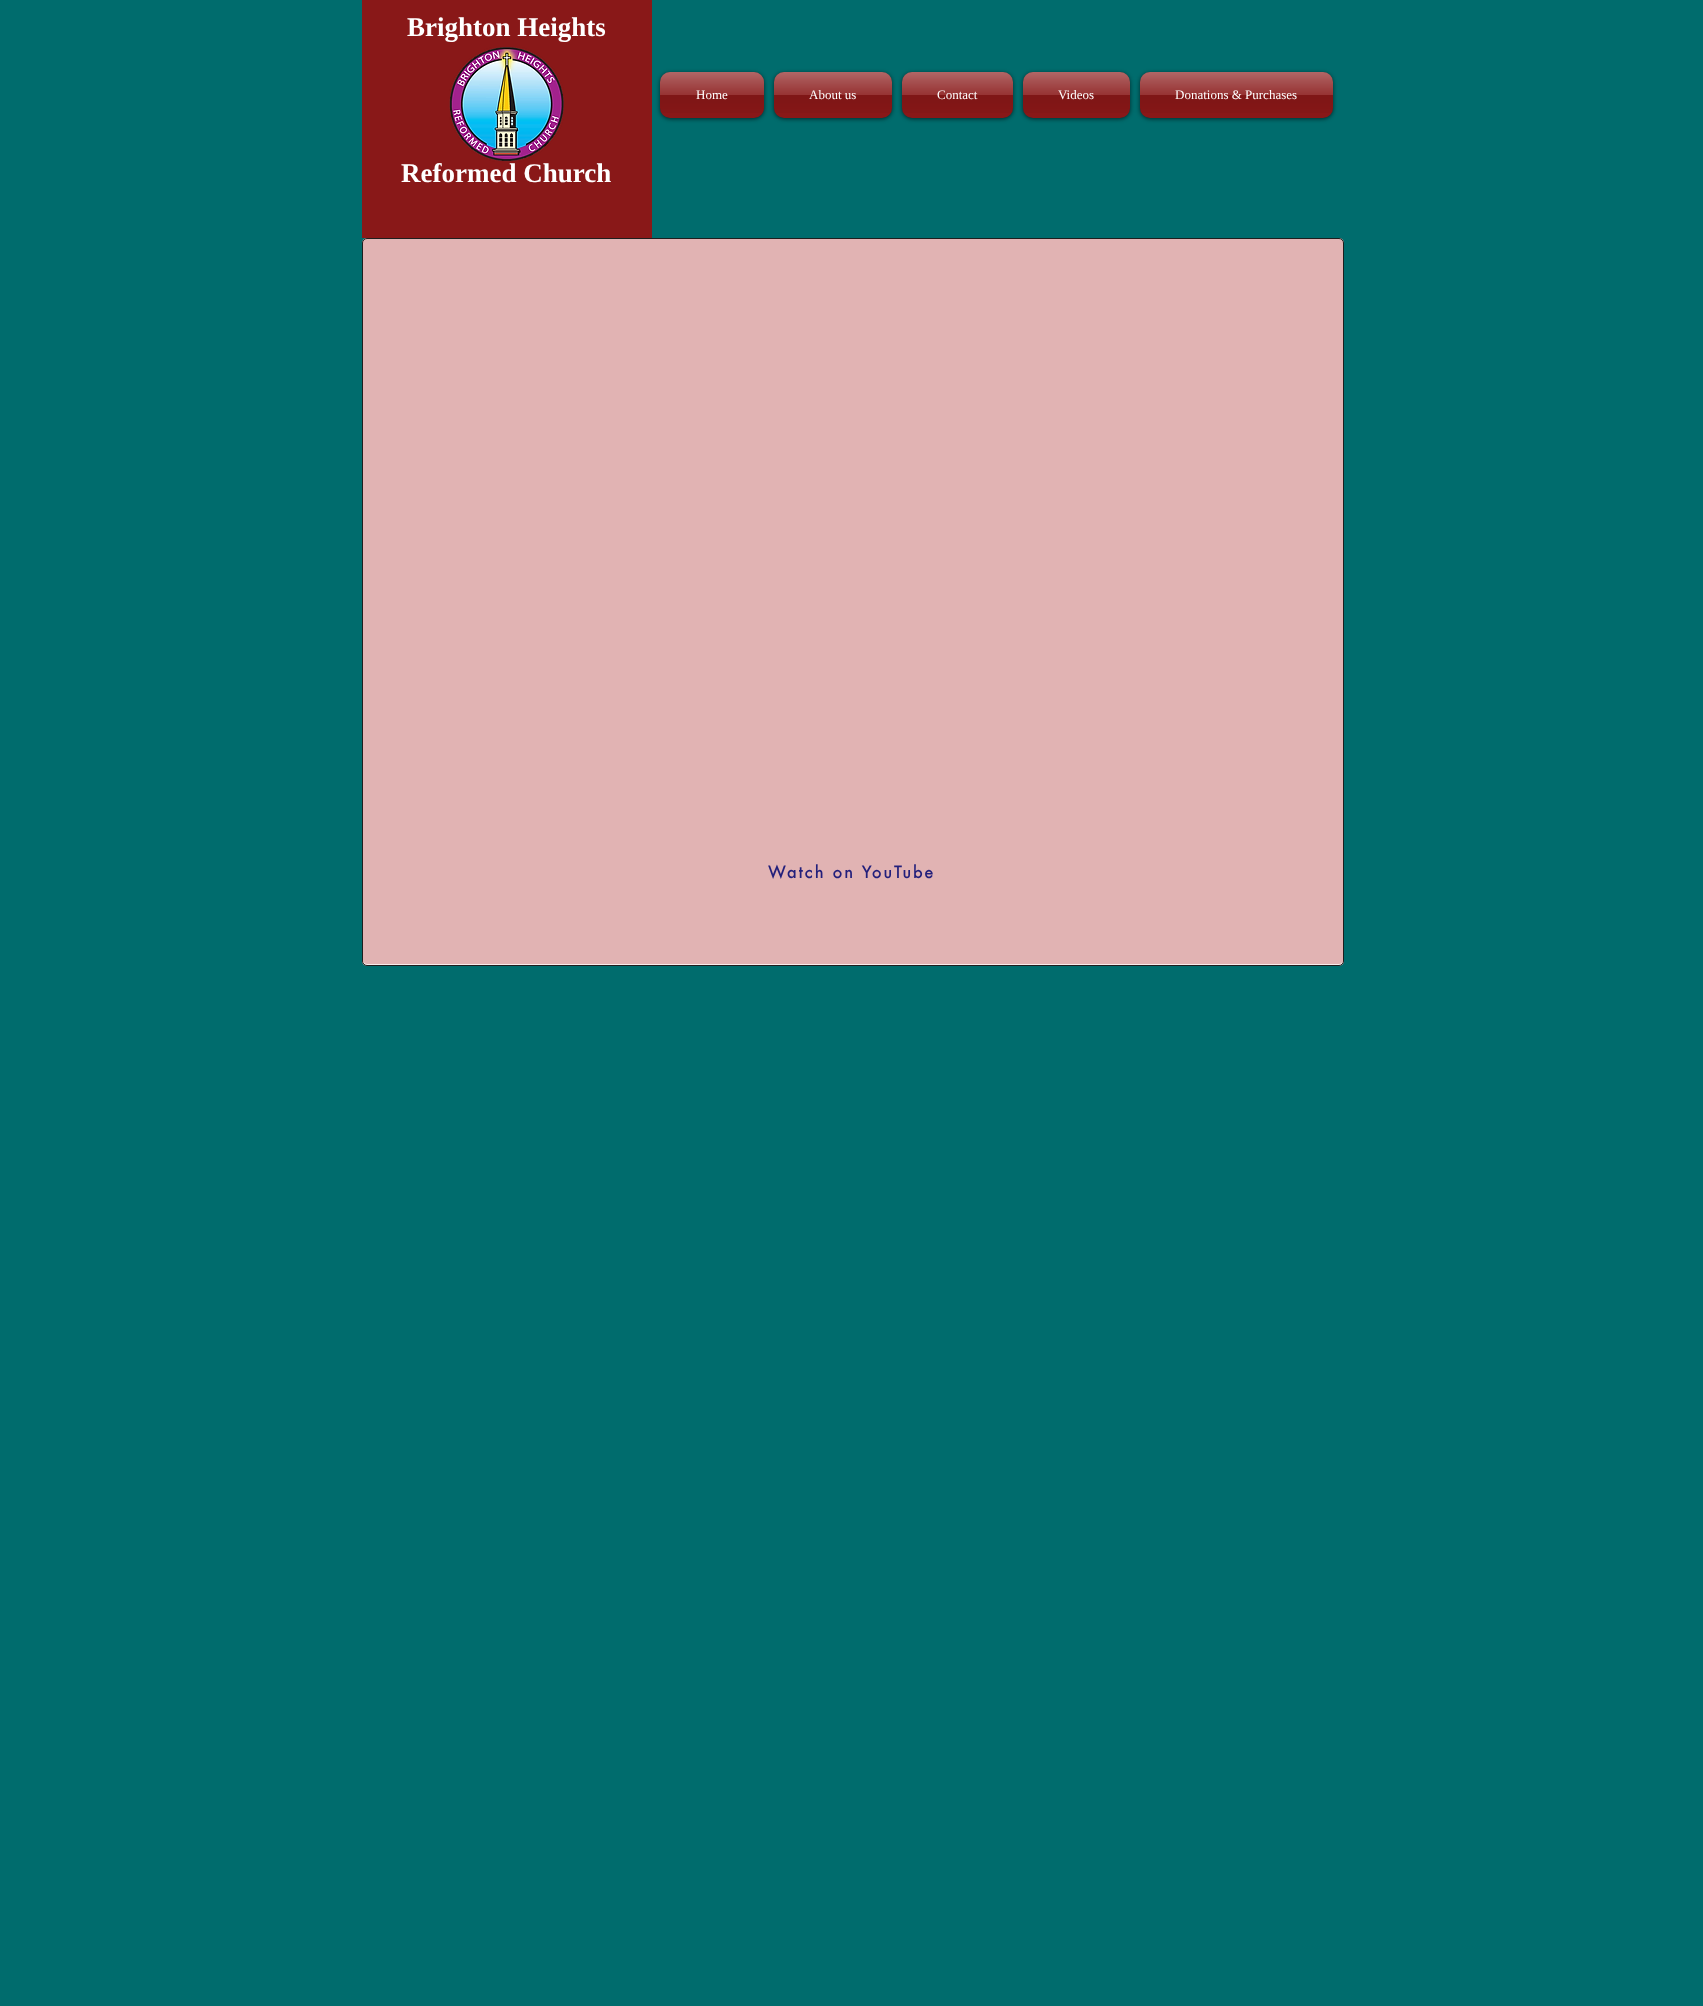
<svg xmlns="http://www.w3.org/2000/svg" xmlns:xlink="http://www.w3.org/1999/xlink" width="1703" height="2006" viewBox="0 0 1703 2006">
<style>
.cls-1{font:bold 27px Liberation Serif;fill:#ffffff}
.cls-2{font:13px Liberation Serif;fill:#ffffff}
.cls-3{font:bold 16px futura;letter-spacing:2.4px;fill:#221f7b}
</style>
<rect width="100%" height="100%" fill="#006c6d"/>
<rect fill="#891818" x="362" y="0" width="290" height="238"/>
<image xlink:href="image0.png" x="449" y="47" width="115" height="115"/>
<rect fill="#000000" fill-opacity="0.6" filter="blur(2px)" x="660" y="73" width="104" height="46" rx="10"/>
<rect fill="#891818" x="660" y="72" width="104" height="46" rx="10"/>
<image xlink:href="image1.png" x="660" y="72" width="104" height="41"/>
<rect fill="#000000" fill-opacity="0.6" filter="blur(2px)" x="774" y="73" width="118" height="46" rx="10"/>
<rect fill="#891818" x="774" y="72" width="118" height="46" rx="10"/>
<image xlink:href="image2.png" x="774" y="72" width="118" height="41"/>
<rect fill="#000000" fill-opacity="0.6" filter="blur(2px)" x="902" y="73" width="111" height="46" rx="10"/>
<rect fill="#891818" x="902" y="72" width="111" height="46" rx="10"/>
<image xlink:href="image3.png" x="902" y="72" width="111" height="41"/>
<rect fill="#000000" fill-opacity="0.6" filter="blur(2px)" x="1023" y="73" width="107" height="46" rx="10"/>
<rect fill="#891818" x="1023" y="72" width="107" height="46" rx="10"/>
<image xlink:href="image4.png" x="1023" y="72" width="107" height="41"/>
<rect fill="#000000" fill-opacity="0.6" filter="blur(2px)" x="1140" y="73" width="193" height="46" rx="10"/>
<rect fill="#891818" x="1140" y="72" width="193" height="46" rx="10"/>
<image xlink:href="image5.png" x="1140" y="72" width="193" height="41"/>
<rect fill="#e1b3b3" x="362" y="238" width="982" height="728" rx="5"/>
<path fill="#f8ecec" d="M363 960C363 963 364 965 367 965H1339C1342 965 1343 963 1343 960C1343 962 1341 964 1339 964H367C365 964 363 962 363 960Z"/>
<rect fill="none" stroke="#1e1e1e" x="362.5" y="238.5" width="981" height="727" rx="4.5"/>
<text class="cls-1" x="407" y="36">Brighton Heights</text>
<text class="cls-2" x="696" y="99">Home</text>
<text class="cls-2" x="809" y="99">About us</text>
<text class="cls-2" x="937" y="99">Contact</text>
<text class="cls-2" x="1058" y="99">Videos</text>
<text class="cls-2" x="1175" y="99">Donations &amp; Purchases</text>
<text class="cls-1" x="401" y="182">Reformed Church</text>
<text class="cls-3" x="768" y="878">Watch on YouTube</text>
</svg>
